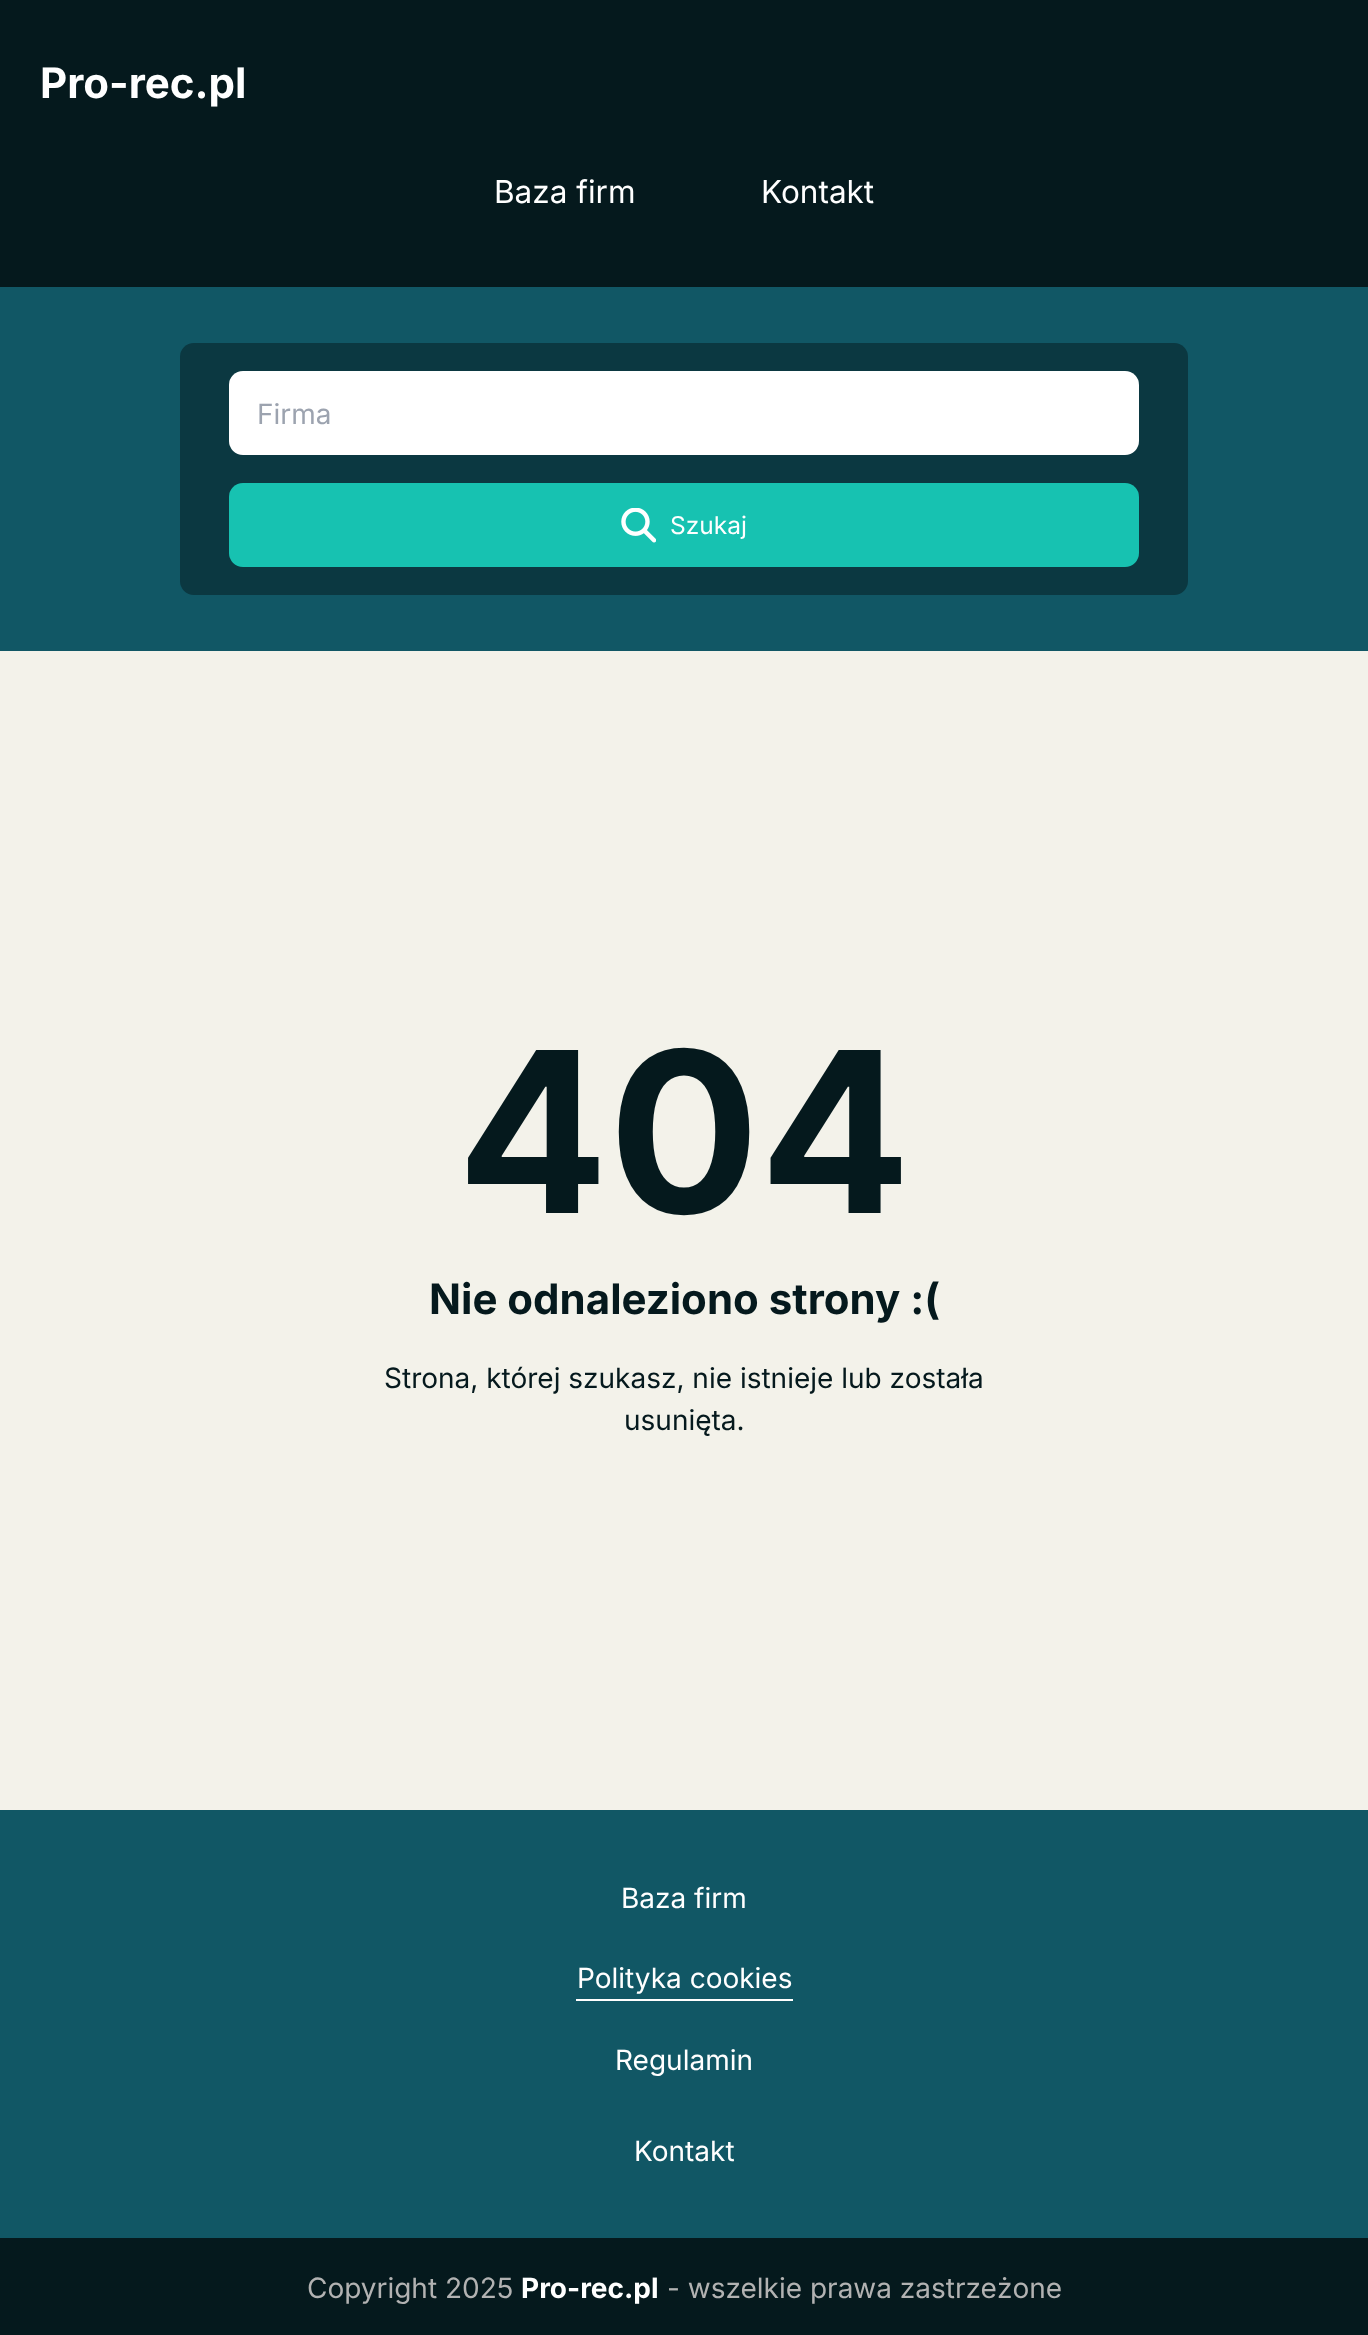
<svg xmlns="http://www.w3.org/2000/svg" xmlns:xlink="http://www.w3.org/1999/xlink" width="1368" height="2335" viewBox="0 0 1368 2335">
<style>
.cls-1{font:bold 42px Inter;fill:#ffffff}
.cls-2{font:31.5px Inter;fill:#ffffff}
.cls-3{font:28px Inter;fill:#9ca3af}
.cls-4{font:24.5px Inter;fill:#ffffff}
.cls-5{font:bold 224px Inter;fill:#05191d}
.cls-6{font:bold 42px Inter;fill:#05191d}
.cls-7{font:28px Inter;fill:#05191d}
.cls-8{font:28px Inter;fill:#ffffff}
.cls-9{font:28px Inter;fill:#b2b2b2}
.cls-10{font:bold 28px Inter;fill:#ffffff}
</style>
<rect width="100%" height="100%" fill="#f3f2ea"/>
<rect fill="#05191d" x="0" y="0" width="1368" height="287"/>
<rect fill="#115765" x="0" y="287" width="1368" height="364"/>
<rect fill="#0b3841" x="180" y="343" width="1008" height="252" rx="14"/>
<rect fill="#ffffff" x="229" y="371" width="910" height="84" rx="14"/>
<rect fill="#17c2b1" x="229" y="483" width="910" height="84" rx="14"/>
<image xlink:href="image0.png" x="621" y="508" width="35" height="35"/>
<rect fill="#115765" x="0" y="1810" width="1368" height="428"/>
<rect fill="#ffffff" x="576" y="1999" width="217" height="2"/>
<rect fill="#05191d" x="0" y="2238" width="1368" height="97"/>
<text class="cls-1" x="40" y="98">Pro-rec.pl</text>
<text class="cls-2" x="494" y="203">Baza firm</text>
<text class="cls-2" x="761" y="203">Kontakt</text>
<text class="cls-3" x="257" y="424">Firma</text>
<text class="cls-4" x="670" y="534">Szukaj</text>
<text class="cls-5" x="457" y="1213">404</text>
<text class="cls-6" x="429" y="1314">Nie odnaleziono strony :(</text>
<text class="cls-7" x="384" y="1388">Strona, której szukasz, nie istnieje lub została</text>
<text class="cls-7" x="624" y="1430">usunięta.</text>
<text class="cls-8" x="621" y="1908">Baza firm</text>
<text class="cls-8" x="577" y="1988">Polityka cookies</text>
<text class="cls-8" x="615" y="2070">Regulamin</text>
<text class="cls-8" x="634" y="2161">Kontakt</text>
<text class="cls-9" x="307" y="2298">Copyright 2025</text>
<text class="cls-10" x="521" y="2298">Pro-rec.pl</text>
<text class="cls-9" x="667" y="2298">- wszelkie prawa zastrzeżone</text>
</svg>
